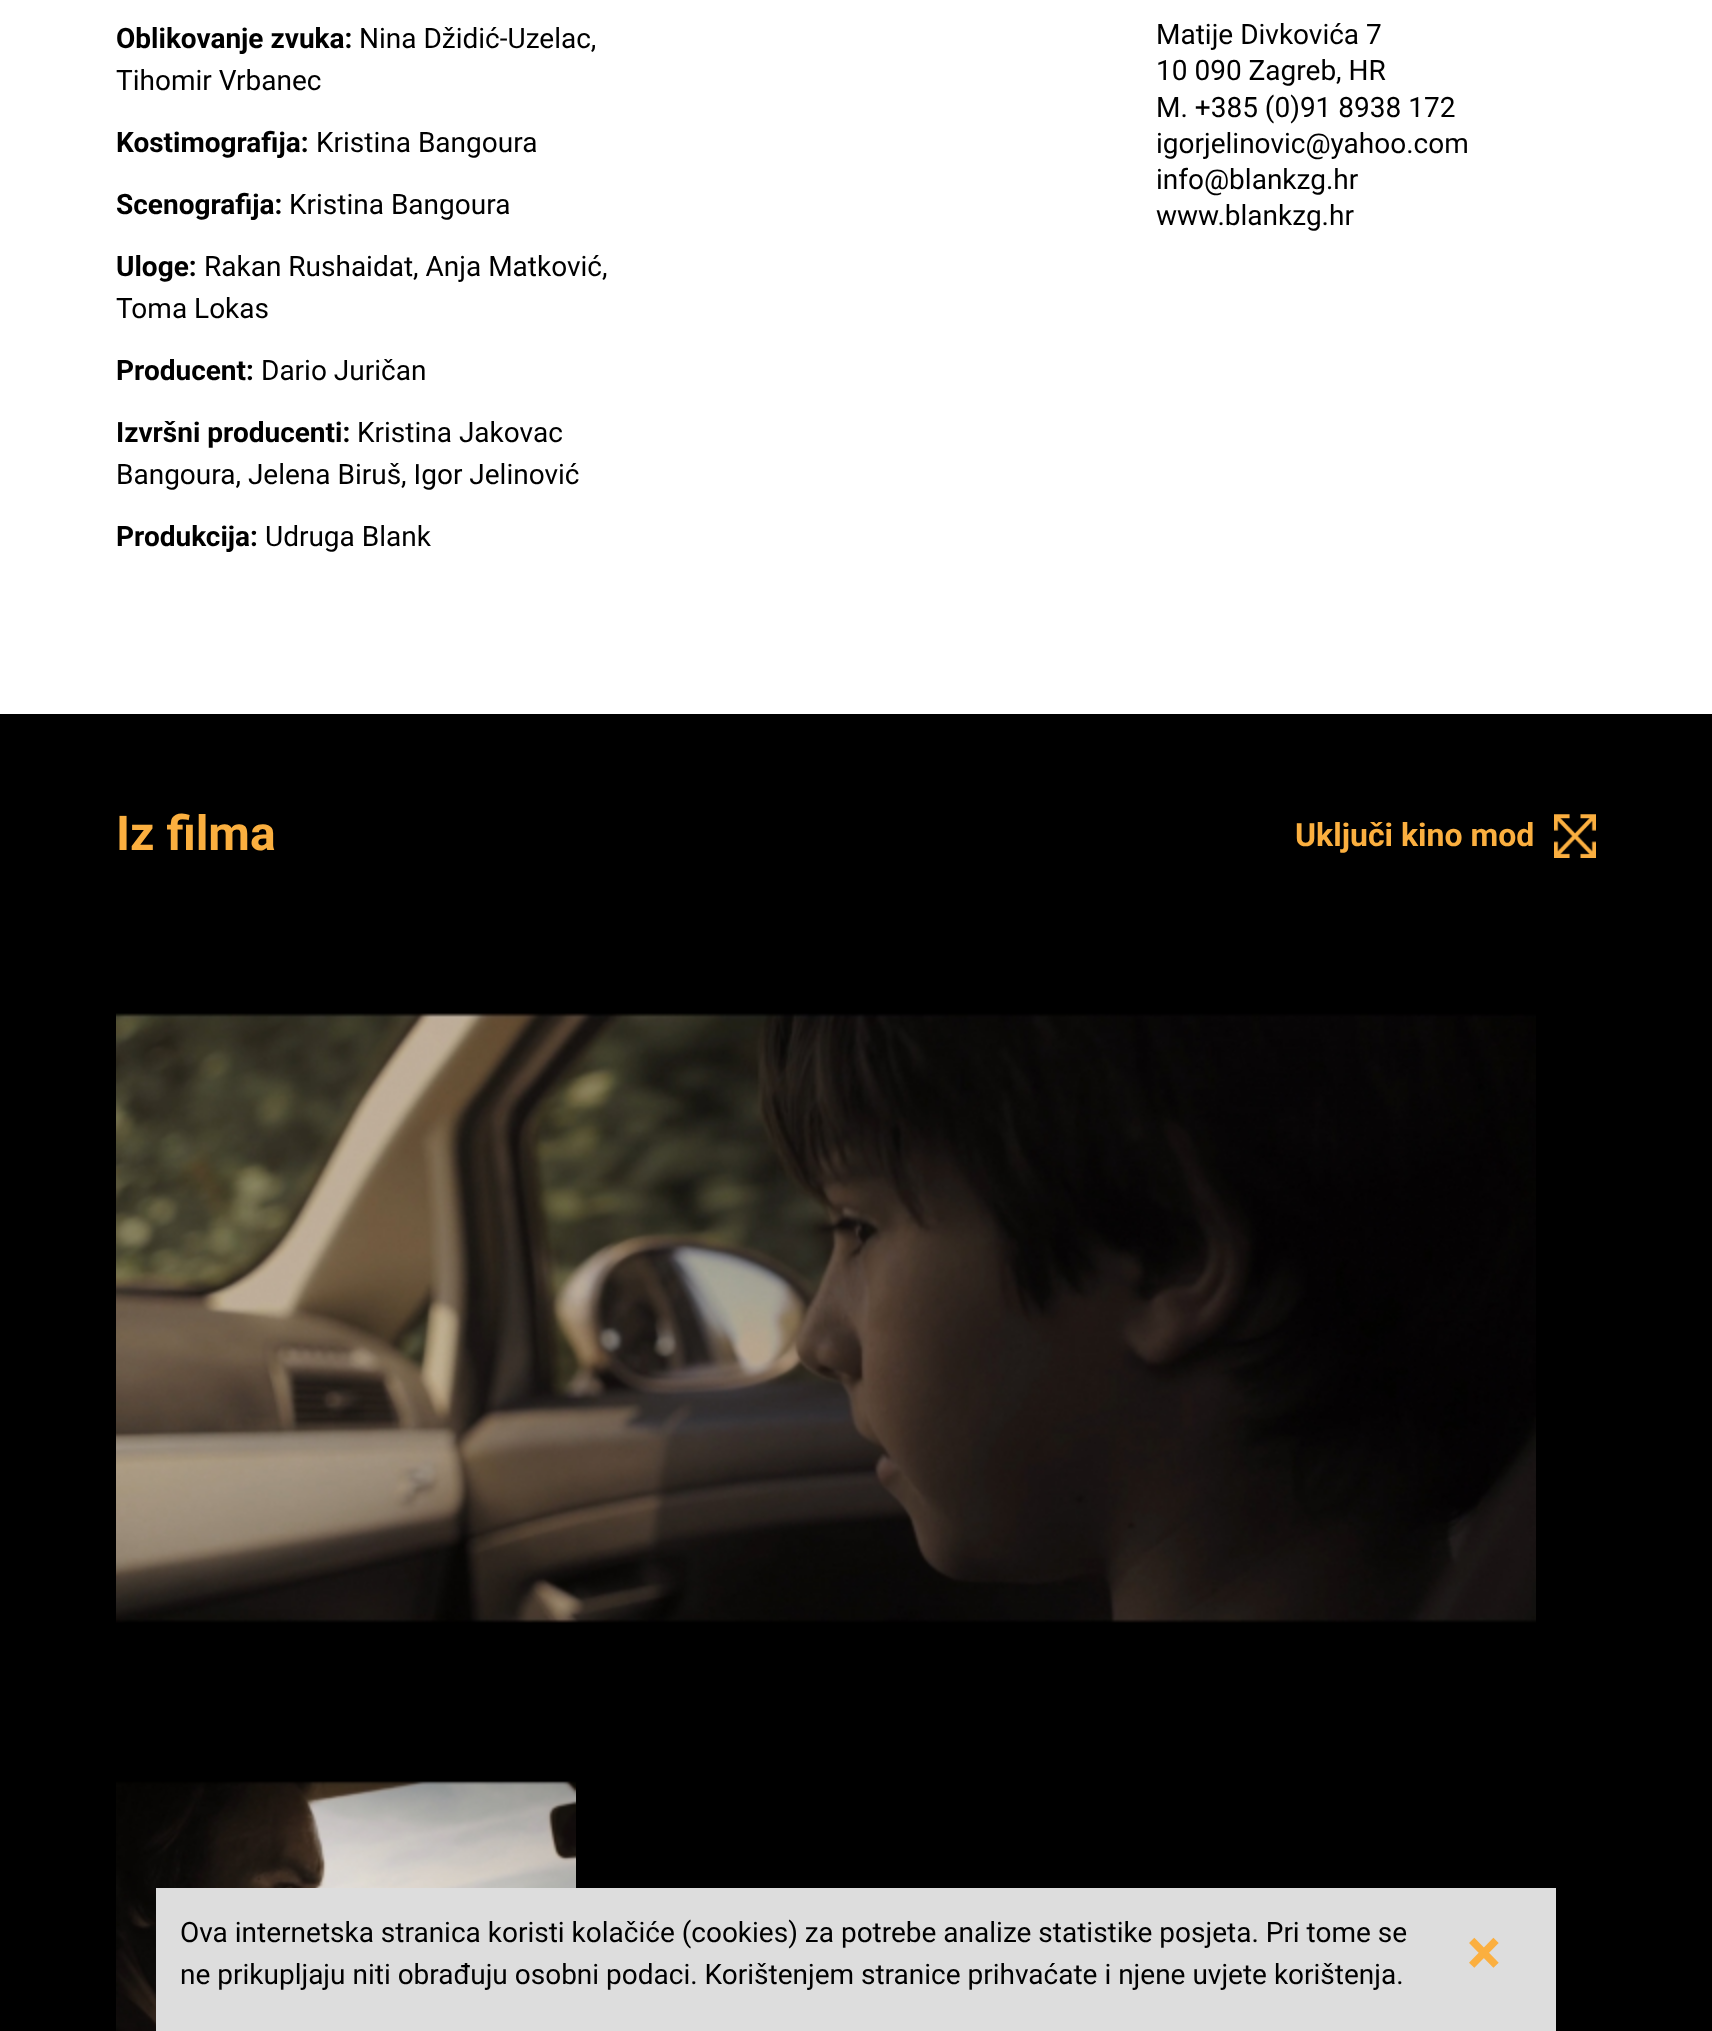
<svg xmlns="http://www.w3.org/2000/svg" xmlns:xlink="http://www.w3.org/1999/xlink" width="1712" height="2031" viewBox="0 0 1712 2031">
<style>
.cls-1{font:bold 28px Roboto;fill:#000000}
.cls-2{font:28px Roboto;fill:#000000}
.cls-3{font:bold 48px Roboto;fill:#fbaf3f}
.cls-4{font:bold 32px Roboto;fill:#fbaf3f}
.cls-5{font:bold 64px Roboto;fill:#fbaf3f}
</style>
<rect width="100%" height="100%" fill="#ffffff"/>
<rect fill="#000000" x="0" y="714" width="1712" height="1317"/>
<image xlink:href="image0.png" x="1554" y="814" width="42" height="44"/>
<image xlink:href="image1.png" x="116" y="1013" width="1420" height="610"/>
<image xlink:href="image2.png" x="116" y="1781" width="460" height="250"/>
<rect fill="#dddddd" x="156" y="1888" width="1400" height="143"/>
<text class="cls-1" x="116" y="48">Oblikovanje zvuka:</text>
<text class="cls-2" x="359" y="48">Nina Džidić-Uzelac,</text>
<text class="cls-2" x="116" y="90">Tihomir Vrbanec</text>
<text class="cls-1" x="116" y="152">Kostimografija:</text>
<text class="cls-2" x="316" y="152">Kristina Bangoura</text>
<text class="cls-1" x="116" y="214">Scenografija:</text>
<text class="cls-2" x="289" y="214">Kristina Bangoura</text>
<text class="cls-1" x="116" y="276">Uloge:</text>
<text class="cls-2" x="204" y="276">Rakan Rushaidat, Anja Matković,</text>
<text class="cls-2" x="116" y="318">Toma Lokas</text>
<text class="cls-1" x="116" y="380">Producent:</text>
<text class="cls-2" x="261" y="380">Dario Juričan</text>
<text class="cls-1" x="116" y="442">Izvršni producenti:</text>
<text class="cls-2" x="357" y="442">Kristina Jakovac</text>
<text class="cls-2" x="116" y="484">Bangoura, Jelena Biruš, Igor Jelinović</text>
<text class="cls-1" x="116" y="546">Produkcija:</text>
<text class="cls-2" x="265" y="546">Udruga Blank</text>
<text class="cls-2"><tspan x="1156" y="44">Matije Divkovića 7</tspan><tspan x="1156" y="80">10 090 Zagreb, HR</tspan><tspan x="1156" y="117">M. +385 (0)91 8938 172</tspan><tspan x="1156" y="153">igorjelinovic@yahoo.com</tspan><tspan x="1156" y="189">info@blankzg.hr</tspan><tspan x="1156" y="225">www.blankzg.hr</tspan></text>
<text class="cls-3" x="116" y="850">Iz filma</text>
<text class="cls-4" x="1295" y="846">Uključi kino mod</text>
<text class="cls-2" x="180" y="1942">Ova internetska stranica koristi kolačiće (cookies) za potrebe analize statistike posjeta. Pri tome se</text>
<text class="cls-5" x="1467" y="1974">×</text>
<text class="cls-2" x="180" y="1984">ne prikupljaju niti obrađuju osobni podaci. Korištenjem stranice prihvaćate i njene uvjete korištenja.</text>
</svg>
